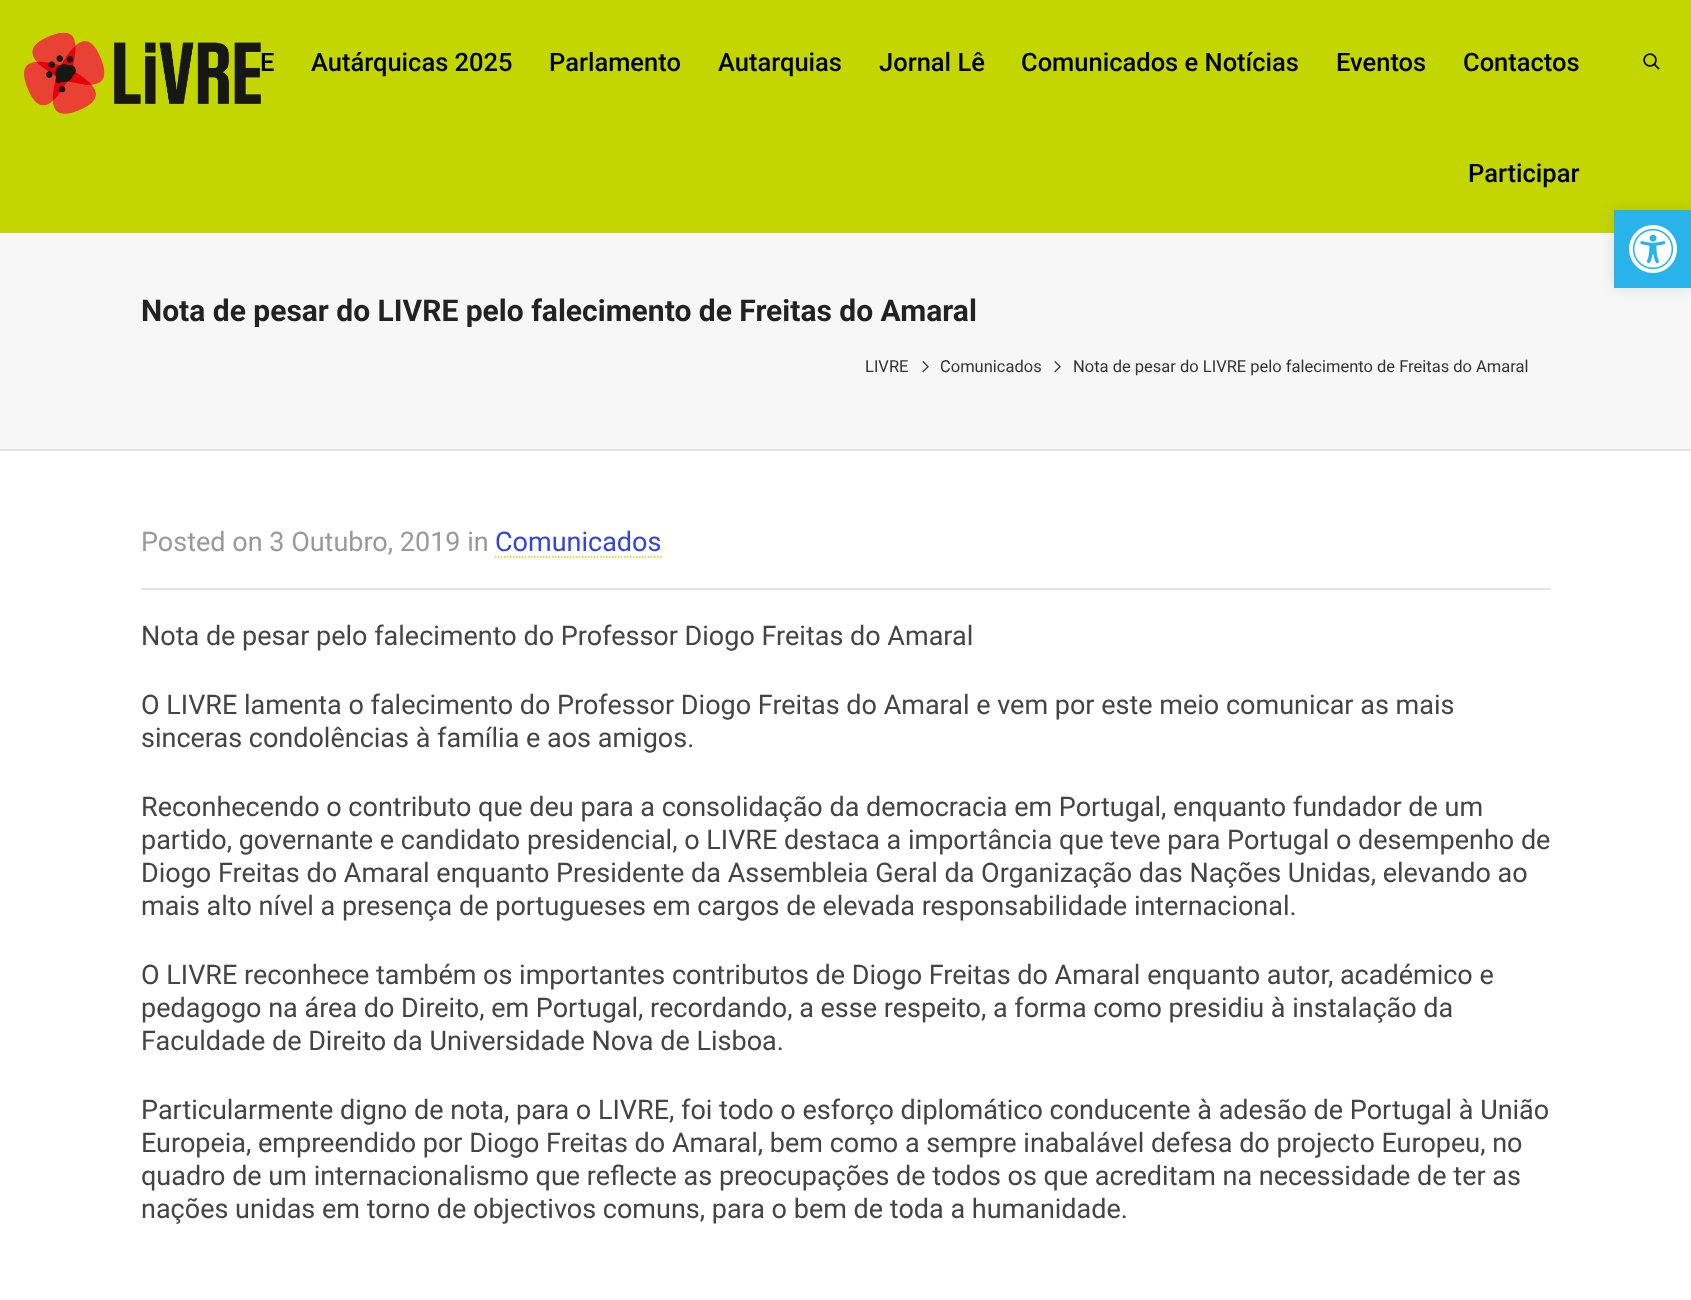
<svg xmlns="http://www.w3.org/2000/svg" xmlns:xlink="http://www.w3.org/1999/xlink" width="1691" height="1300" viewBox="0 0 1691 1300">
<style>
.cls-1{font:500 25.5px Roboto;fill:#000000}
.cls-2{font:bold 30px Roboto;fill:#222222}
.cls-3{font:16.5px Roboto;fill:#333333}
.cls-4{font:27px Roboto;fill:#999999}
.cls-5{font:27px Roboto;fill:#3344dd}
.cls-6{font:27px Roboto;fill:#444444}
</style>
<rect width="100%" height="100%" fill="#ffffff"/>
<rect fill="#c4d600" x="0" y="0" width="1691" height="233"/>
<image xlink:href="image0.png" x="23" y="32" width="238" height="82"/>
<image xlink:href="image1.png" x="1643" y="53" width="17" height="17"/>
<rect fill="#f7f7f7" x="0" y="233" width="1691" height="216"/>
<rect fill="#e4e4e4" x="0" y="449" width="1691" height="2"/>
<image xlink:href="image2.png" x="922" y="361" width="7" height="12"/>
<image xlink:href="image2.png" x="1054" y="361" width="7" height="12"/>
<rect fill="#e4e4e4" x="141" y="588" width="1410" height="2"/>
<path fill="none" stroke="#c4d600" stroke-width="1.5" stroke-dasharray="1.5 1.5" d="M495 557H661.5"/>
<rect fill="#000000" fill-opacity="0.1" filter="blur(7.5px)" x="1614" y="210" width="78" height="78"/>
<rect fill="#28b4eb" x="1614" y="210" width="77" height="78"/>
<image xlink:href="image3.png" x="1629" y="225" width="48" height="48"/>
<text class="cls-1" x="260" y="71">E</text>
<text class="cls-1" x="311" y="71">Autárquicas 2025</text>
<text class="cls-1" x="549" y="71">Parlamento</text>
<text class="cls-1" x="718" y="71">Autarquias</text>
<text class="cls-1" x="879" y="71">Jornal Lê</text>
<text class="cls-1" x="1021" y="71">Comunicados e Notícias</text>
<text class="cls-1" x="1336" y="71">Eventos</text>
<text class="cls-1" x="1463" y="71">Contactos</text>
<text class="cls-1" x="1468" y="182">Participar</text>
<text class="cls-2" x="141" y="321">Nota de pesar do LIVRE pelo falecimento de Freitas do Amaral</text>
<text class="cls-3" x="865" y="372">LIVRE</text>
<text class="cls-3" x="940" y="372">Comunicados</text>
<text class="cls-3" x="1073" y="372">Nota de pesar do LIVRE pelo falecimento de Freitas do Amaral</text>
<text class="cls-4" x="141" y="551">Posted on 3 Outubro, 2019 in</text>
<text class="cls-5" x="495" y="551">Comunicados</text>
<text class="cls-6" x="141" y="645">Nota de pesar pelo falecimento do Professor Diogo Freitas do Amaral</text>
<text class="cls-6"><tspan x="141" y="714">O LIVRE lamenta o falecimento do Professor Diogo Freitas do Amaral e vem por este meio comunicar as mais</tspan><tspan x="141" y="747">sinceras condolências à família e aos amigos.</tspan></text>
<text class="cls-6"><tspan x="141" y="816">Reconhecendo o contributo que deu para a consolidação da democracia em Portugal, enquanto fundador de um</tspan><tspan x="141" y="849">partido, governante e candidato presidencial, o LIVRE destaca a importância que teve para Portugal o desempenho de</tspan><tspan x="141" y="882">Diogo Freitas do Amaral enquanto Presidente da Assembleia Geral da Organização das Nações Unidas, elevando ao</tspan><tspan x="141" y="915">mais alto nível a presença de portugueses em cargos de elevada responsabilidade internacional.</tspan></text>
<text class="cls-6"><tspan x="141" y="984">O LIVRE reconhece também os importantes contributos de Diogo Freitas do Amaral enquanto autor, académico e</tspan><tspan x="141" y="1017">pedagogo na área do Direito, em Portugal, recordando, a esse respeito, a forma como presidiu à instalação da</tspan><tspan x="141" y="1050">Faculdade de Direito da Universidade Nova de Lisboa.</tspan></text>
<text class="cls-6"><tspan x="141" y="1119">Particularmente digno de nota, para o LIVRE, foi todo o esforço diplomático conducente à adesão de Portugal à União</tspan><tspan x="141" y="1152">Europeia, empreendido por Diogo Freitas do Amaral, bem como a sempre inabalável defesa do projecto Europeu, no</tspan><tspan x="141" y="1185">quadro de um internacionalismo que reflecte as preocupações de todos os que acreditam na necessidade de ter as</tspan><tspan x="141" y="1218">nações unidas em torno de objectivos comuns, para o bem de toda a humanidade.</tspan></text>
</svg>
